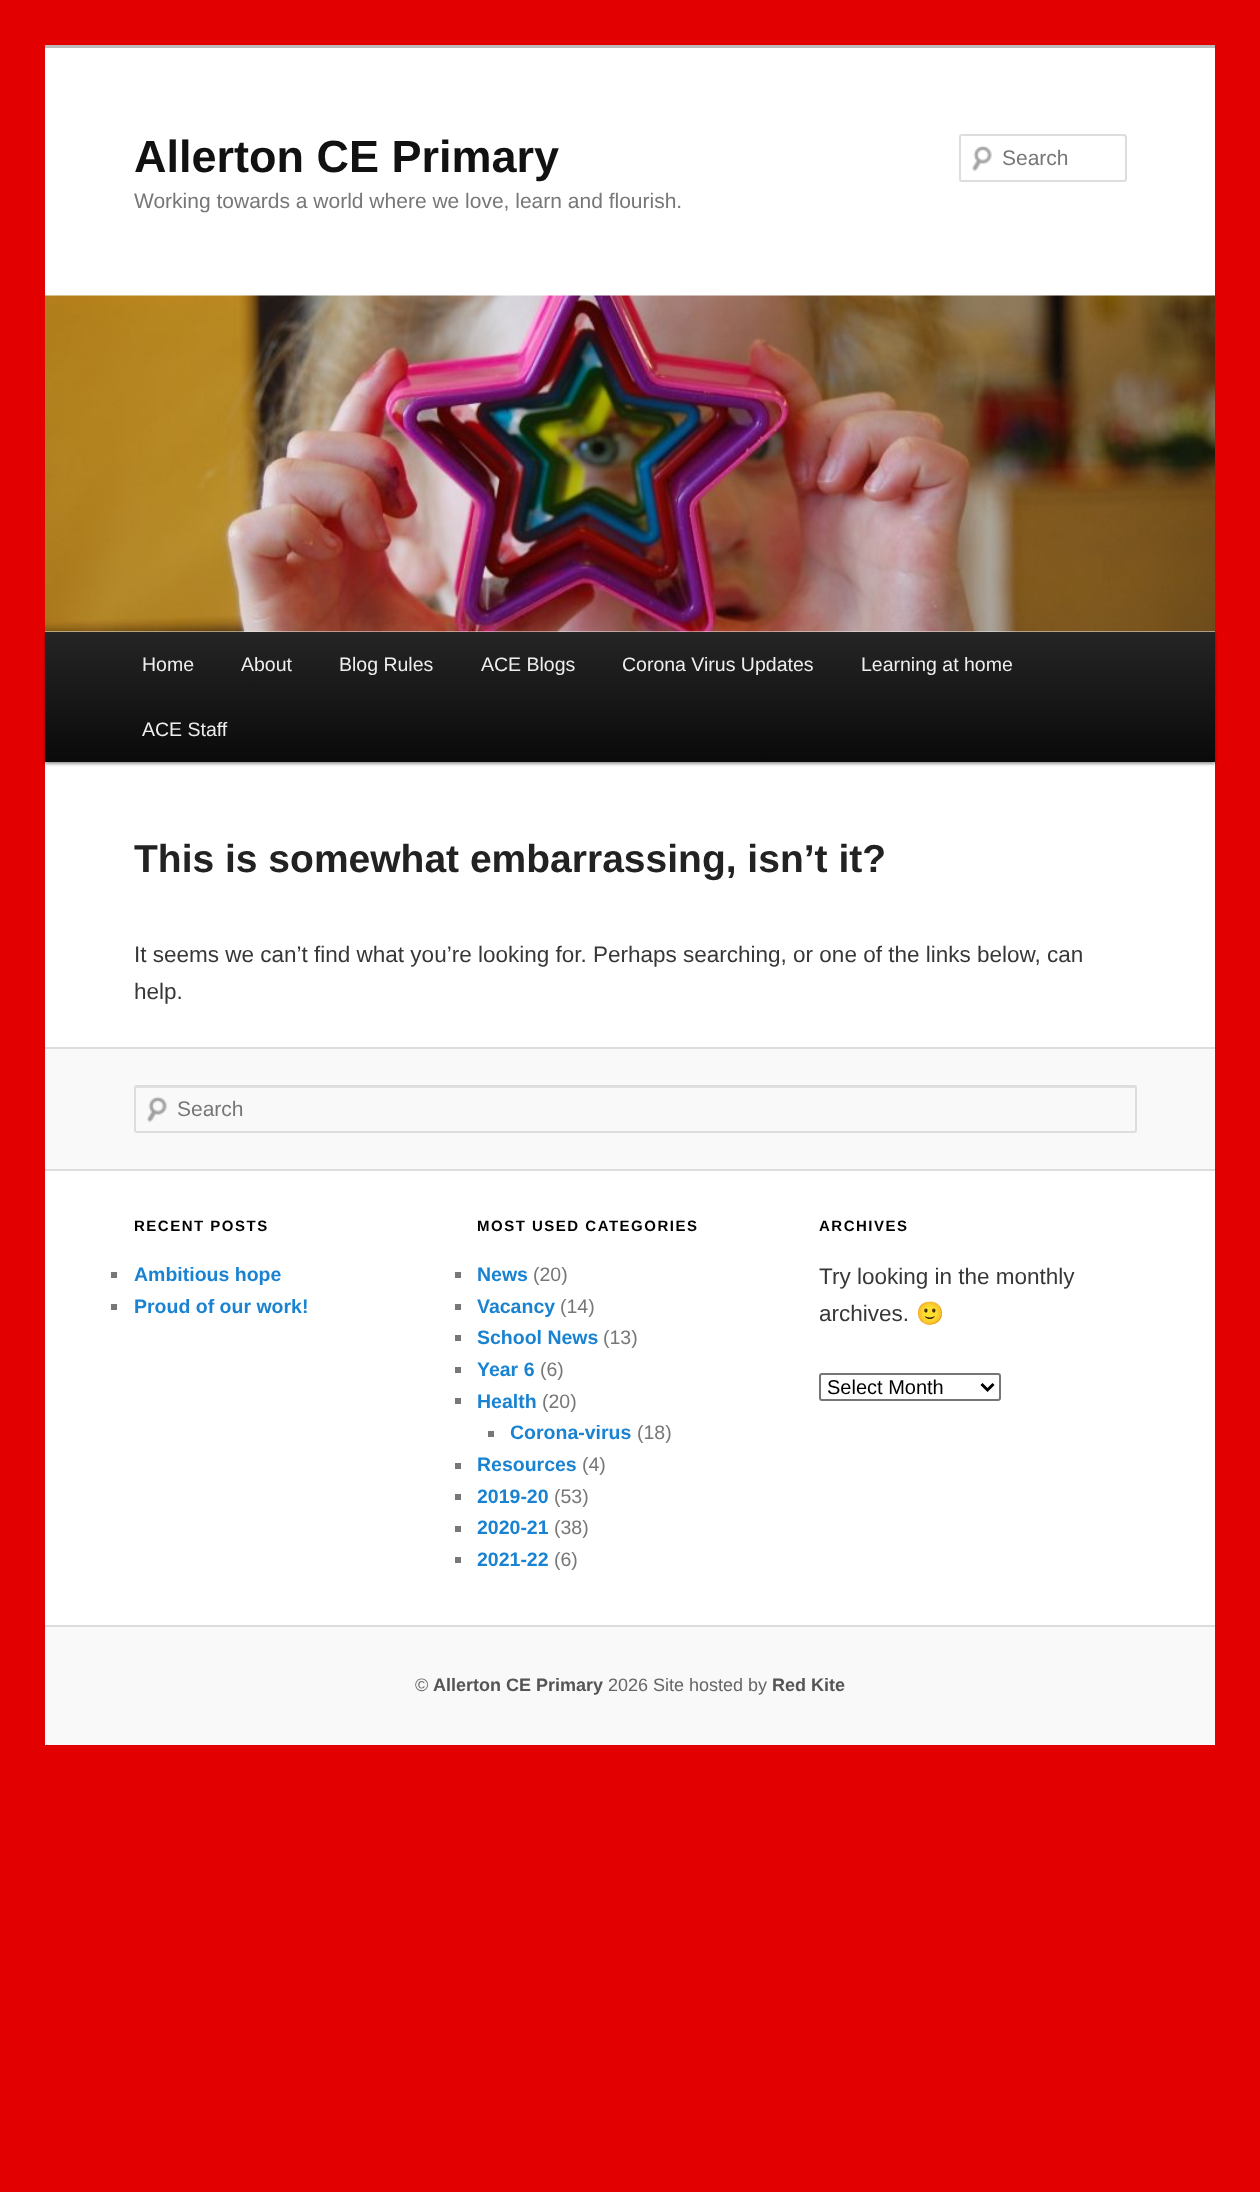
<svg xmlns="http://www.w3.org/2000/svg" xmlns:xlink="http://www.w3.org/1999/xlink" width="1260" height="2192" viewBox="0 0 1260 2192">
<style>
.cls-1{font:bold 45px Liberation Sans;fill:#111111}
.cls-2{font:21px Liberation Sans;fill:#777777}
.cls-3{font:19.5px Liberation Sans;fill:#eeeeee}
.cls-4{font:bold 39px Liberation Sans;fill:#222222}
.cls-5{font:22.5px Liberation Sans;fill:#373737}
.cls-6{font:bold 15px Liberation Sans;letter-spacing:1.5px;fill:#000000}
.cls-7{font:bold 19.5px Liberation Sans;fill:#1982d1}
.cls-8{font:19.5px Liberation Sans;fill:#777777}
.cls-9{font:22.5px Noto Color Emoji;fill:#373737}
.cls-10{font:20px Liberation Sans;fill:#000000}
.cls-11{font:18px Liberation Sans;fill:#666666}
.cls-12{font:bold 18px Liberation Sans;fill:#555555}
</style>
<defs>
<linearGradient id="g1" gradientUnits="userSpaceOnUse" x1="630" y1="631" x2="630" y2="762"><stop offset="0" stop-color="#252525"/><stop offset="1" stop-color="#0a0a0a"/></linearGradient>
</defs>
<rect width="100%" height="100%" fill="#e20000"/>
<rect fill="#ffffff" x="45" y="48" width="1170" height="1577"/>
<rect fill="#bbbbbb" x="45" y="45" width="1170" height="3"/>
<image xlink:href="image0.png" x="972" y="145" width="20" height="27"/>
<path fill="#e6e6e6" d="M962 136H1124L1125 138V136C1125 136 1124 135 1124 135H962C961 135 960 136 960 136V138C960 137 961 136 962 136Z"/>
<rect fill="none" stroke="#dddddd" stroke-width="2" x="960" y="135" width="166" height="46" rx="2"/>
<rect fill="#000000" fill-opacity="0.4" filter="blur(1.5px)" x="45" y="633" width="1170" height="131"/>
<image xlink:href="image1.png" x="45" y="295" width="1170" height="337"/>
<rect fill="url(#g1)" x="45" y="632" width="1170" height="130"/>
<rect fill="#f9f9f9" x="45" y="1049" width="1170" height="120"/>
<rect fill="#dddddd" x="45" y="1047" width="1170" height="2"/>
<rect fill="#dddddd" x="45" y="1169" width="1170" height="2"/>
<image xlink:href="image2.png" x="147" y="1096" width="20" height="27"/>
<path fill="#e0e0e0" d="M136 1088H1134C1135 1088 1136 1088 1136 1089C1136 1088 1136 1086 1134 1086H136C135 1086 135 1088 135 1089Z"/>
<rect fill="none" stroke="#dddddd" stroke-width="2" x="135" y="1086" width="1001" height="46" rx="2"/>
<rect fill="#777777" x="111" y="1272" width="6" height="6"/>
<rect fill="#777777" x="111" y="1304" width="6" height="6"/>
<rect fill="#777777" x="455" y="1272" width="6" height="6"/>
<rect fill="#777777" x="455" y="1304" width="6" height="6"/>
<rect fill="#777777" x="455" y="1335" width="6" height="6"/>
<rect fill="#777777" x="455" y="1367" width="6" height="6"/>
<rect fill="#777777" x="455" y="1398" width="6" height="6"/>
<rect fill="#777777" x="488" y="1431" width="6" height="6"/>
<rect fill="#777777" x="455" y="1463" width="6" height="6"/>
<rect fill="#777777" x="455" y="1494" width="6" height="6"/>
<rect fill="#777777" x="455" y="1526" width="6" height="6"/>
<rect fill="#777777" x="455" y="1557" width="6" height="6"/>
<rect fill="none" stroke="#767676" stroke-width="2" x="820" y="1374" width="180" height="26" rx="2"/>
<path fill="none" stroke="#000000" stroke-width="3" d="M981.5 1384L987.5 1390L993.5 1384"/>
<rect fill="#f9f9f9" x="45" y="1627" width="1170" height="118"/>
<rect fill="#dddddd" x="45" y="1625" width="1170" height="2"/>
<text class="cls-1" x="134" y="172">Allerton CE Primary</text>
<text class="cls-2" x="134" y="208">Working towards a world where we love, learn and flourish.</text>
<text class="cls-2" x="1002" y="165">Search</text>
<text class="cls-3" x="142" y="671">Home</text>
<text class="cls-3" x="241" y="671">About</text>
<text class="cls-3" x="339" y="671">Blog Rules</text>
<text class="cls-3" x="481" y="671">ACE Blogs</text>
<text class="cls-3" x="622" y="671">Corona Virus Updates</text>
<text class="cls-3" x="861" y="671">Learning at home</text>
<text class="cls-3" x="142" y="736">ACE Staff</text>
<text class="cls-4" x="134" y="872">This is somewhat embarrassing, isn’t it?</text>
<text class="cls-5"><tspan x="134" y="962">It seems we can’t find what you’re looking for. Perhaps searching, or one of the links below, can</tspan><tspan x="134" y="999">help.</tspan></text>
<text class="cls-2" x="177" y="1116">Search</text>
<text class="cls-6" x="134" y="1231">RECENT POSTS</text>
<text class="cls-7"><tspan x="134" y="1281">Ambitious hope</tspan><tspan x="134" y="1313">Proud of our work!</tspan></text>
<text class="cls-6" x="477" y="1231">MOST USED CATEGORIES</text>
<text class="cls-7" x="477" y="1281">News</text>
<text class="cls-8" x="533" y="1281">(20)</text>
<text class="cls-7" x="477" y="1313">Vacancy</text>
<text class="cls-8" x="560" y="1313">(14)</text>
<text class="cls-7" x="477" y="1344">School News</text>
<text class="cls-8" x="603" y="1344">(13)</text>
<text class="cls-7" x="477" y="1376">Year 6</text>
<text class="cls-8" x="540" y="1376">(6)</text>
<text class="cls-7" x="477" y="1408">Health</text>
<text class="cls-8" x="542" y="1408">(20)</text>
<text class="cls-7" x="510" y="1439">Corona-virus</text>
<text class="cls-8" x="637" y="1439">(18)</text>
<text class="cls-7" x="477" y="1471">Resources</text>
<text class="cls-8" x="582" y="1471">(4)</text>
<text class="cls-7" x="477" y="1503">2019-20</text>
<text class="cls-8" x="554" y="1503">(53)</text>
<text class="cls-7" x="477" y="1534">2020-21</text>
<text class="cls-8" x="554" y="1534">(38)</text>
<text class="cls-7" x="477" y="1566">2021-22</text>
<text class="cls-8" x="554" y="1566">(6)</text>
<text class="cls-6" x="819" y="1231">ARCHIVES</text>
<text class="cls-5"><tspan x="819" y="1284">Try looking in the monthly</tspan><tspan x="819" y="1321">archives.</tspan></text>
<text class="cls-9" x="916" y="1321">🙂</text>
<text class="cls-10" x="827" y="1394">Select Month</text>
<text class="cls-11" x="415" y="1691">©</text>
<text class="cls-12" x="433" y="1691">Allerton CE Primary</text>
<text class="cls-11" x="608" y="1691">2026 Site hosted by</text>
<text class="cls-12" x="772" y="1691">Red Kite</text>
</svg>
